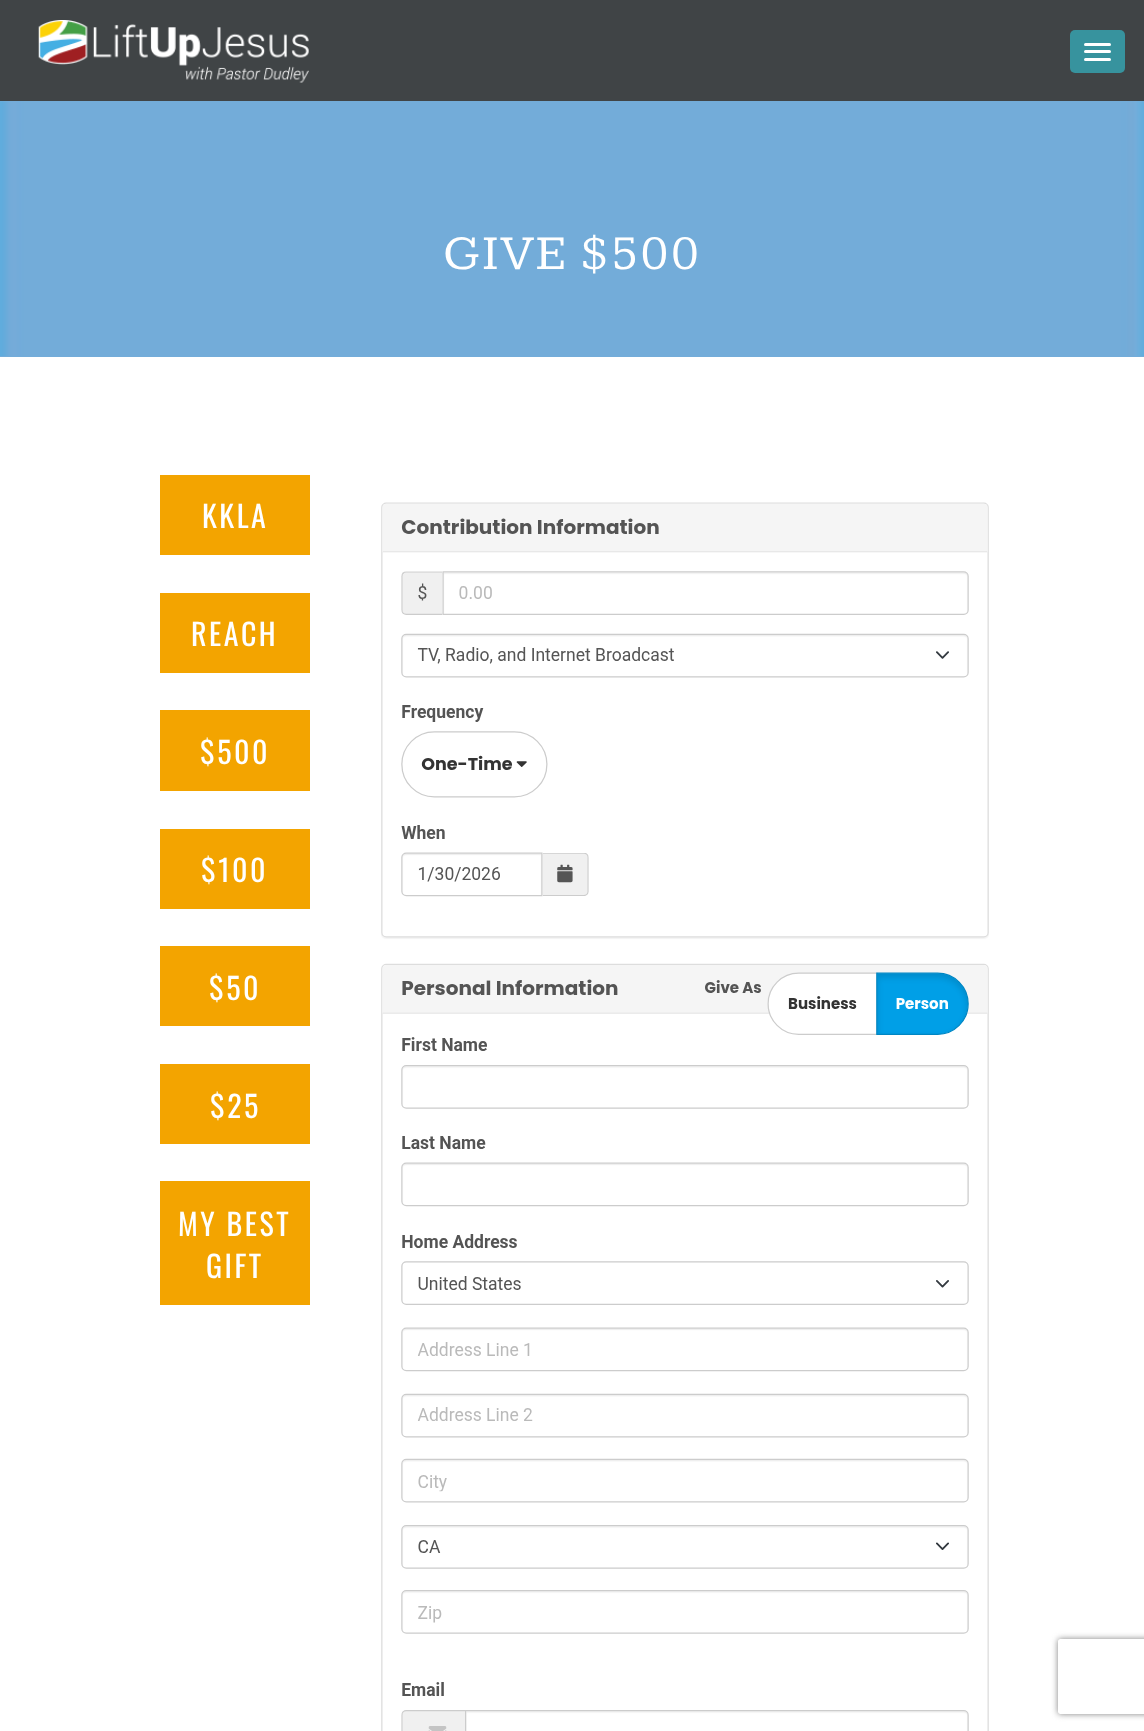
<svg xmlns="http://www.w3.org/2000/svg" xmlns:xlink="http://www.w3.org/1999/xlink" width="1144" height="1731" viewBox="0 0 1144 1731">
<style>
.cls-1{font:50px Kameron;letter-spacing:2.5px;fill:#ffffff}
.cls-2{font:30px Oswald;letter-spacing:2.5px;fill:#ffffff}
</style>
<defs>
<clipPath id="clip1"><path d="M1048 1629H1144V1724H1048ZM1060.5 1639H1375.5C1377 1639 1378 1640 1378 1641.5V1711.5C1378 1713 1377 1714 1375.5 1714H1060.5C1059 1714 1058 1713 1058 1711.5V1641.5C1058 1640 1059 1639 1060.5 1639Z" clip-rule="evenodd"/></clipPath>
</defs>
<rect width="100%" height="100%" fill="#ffffff"/>
<rect fill="#404446" x="0" y="0" width="1144" height="101"/>
<image xlink:href="image0.png" x="38" y="20" width="271" height="63"/>
<rect fill="#37939e" x="1070" y="30" width="55" height="43" rx="5"/>
<rect fill="#ffffff" x="1084" y="43" width="27" height="3" rx="1.5"/>
<rect fill="#ffffff" x="1084" y="50" width="27" height="3" rx="1.5"/>
<rect fill="#ffffff" x="1084" y="58" width="27" height="3" rx="1.5"/>
<rect fill="#73acd9" x="0" y="101" width="1144" height="256"/>
<image xlink:href="image1.png" x="0" y="101" width="1144" height="255"/>
<rect fill="#f3a400" x="160" y="475" width="150" height="80"/>
<rect fill="#f3a400" x="160" y="593" width="150" height="80"/>
<rect fill="#f3a400" x="160" y="710" width="150" height="81"/>
<rect fill="#f3a400" x="160" y="829" width="150" height="80"/>
<rect fill="#f3a400" x="160" y="946" width="150" height="80"/>
<rect fill="#f3a400" x="160" y="1064" width="150" height="80"/>
<rect fill="#f3a400" x="160" y="1181" width="150" height="124"/>
<image xlink:href="image2.png" x="381" y="502" width="608" height="1229"/>
<g clip-path="url(#clip1)">
<rect fill="#808080" filter="blur(3px)" x="1058" y="1639" width="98" height="75" rx="2.5"/>
</g>
<text class="cls-1" x="443" y="269">GIVE $500</text>
<text class="cls-2" x="202" y="528">KKLA</text>
<text class="cls-2" x="191" y="646">REACH</text>
<text class="cls-2" x="200" y="764">$500</text>
<text class="cls-2" x="201" y="882">$100</text>
<text class="cls-2" x="209" y="1000">$50</text>
<text class="cls-2" x="210" y="1118">$25</text>
<text class="cls-2" x="178" y="1236">MY BEST</text>
<text class="cls-2" x="206" y="1278">GIFT</text>
</svg>
